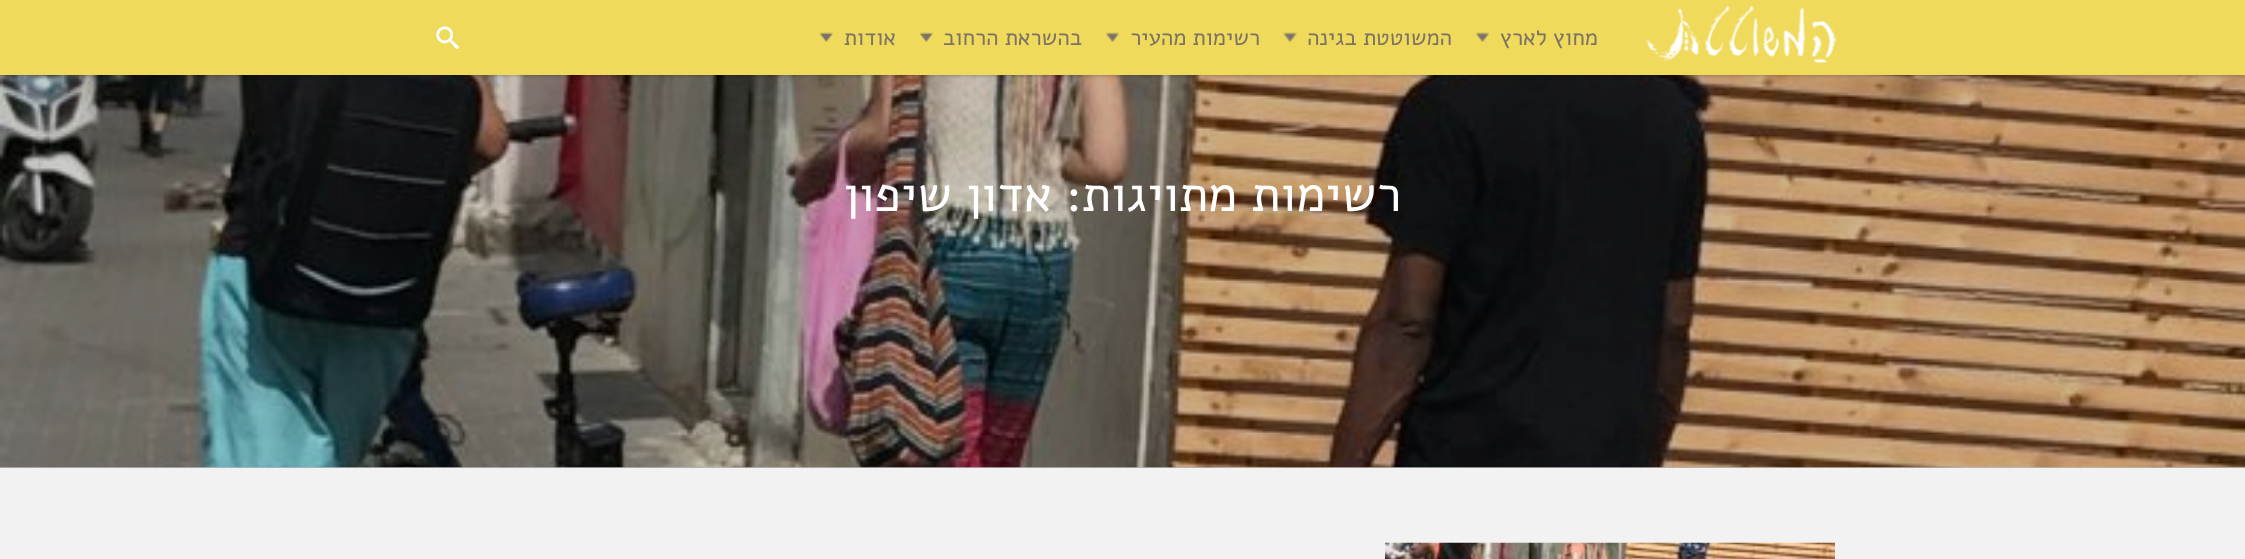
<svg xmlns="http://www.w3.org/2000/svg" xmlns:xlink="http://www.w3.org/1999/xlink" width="2245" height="559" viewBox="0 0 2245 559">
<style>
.cls-1{font:22.5px Alef;direction:rtl;fill:#7c7365}
.cls-2{font:50px Alef;direction:rtl;fill:#ffffff}
</style>
<rect width="100%" height="100%" fill="#f2f2f2"/>
<rect fill="#bebebe" x="0" y="467" width="2245" height="1"/>
<image xlink:href="image6.png" x="0" y="467" width="2245" height="1"/>
<image xlink:href="image7.png" x="0" y="75" width="2245" height="393"/>
<rect fill="#000000" fill-opacity="0.33" filter="blur(2px)" x="0" y="0" width="2245" height="75"/>
<rect fill="#efda5c" x="0" y="0" width="2245" height="75"/>
<image xlink:href="image0.png" x="1645" y="6" width="191" height="57"/>
<image xlink:href="image1.png" x="1476" y="32" width="13" height="10"/>
<image xlink:href="image2.png" x="1283" y="32" width="14" height="11"/>
<image xlink:href="image1.png" x="1106" y="32" width="13" height="10"/>
<image xlink:href="image3.png" x="920" y="32" width="13" height="10"/>
<image xlink:href="image4.png" x="820" y="32" width="13" height="10"/>
<image xlink:href="image5.png" x="436" y="26" width="23" height="23"/>
<image xlink:href="image8.png" x="1385" y="542" width="450" height="17"/>
<text class="cls-1" x="1598" y="45">מחוץ לארץ</text>
<text class="cls-1" x="1452" y="45">המשוטטת בגינה</text>
<text class="cls-1" x="1260" y="45">רשימות מהעיר</text>
<text class="cls-1" x="1082" y="45">בהשראת הרחוב</text>
<text class="cls-1" x="896" y="45">אודות</text>
<text class="cls-2" x="1401" y="211">רשימות מתויגות:</text>
<text class="cls-2" x="1052" y="211">אדון שיפון</text>
</svg>
